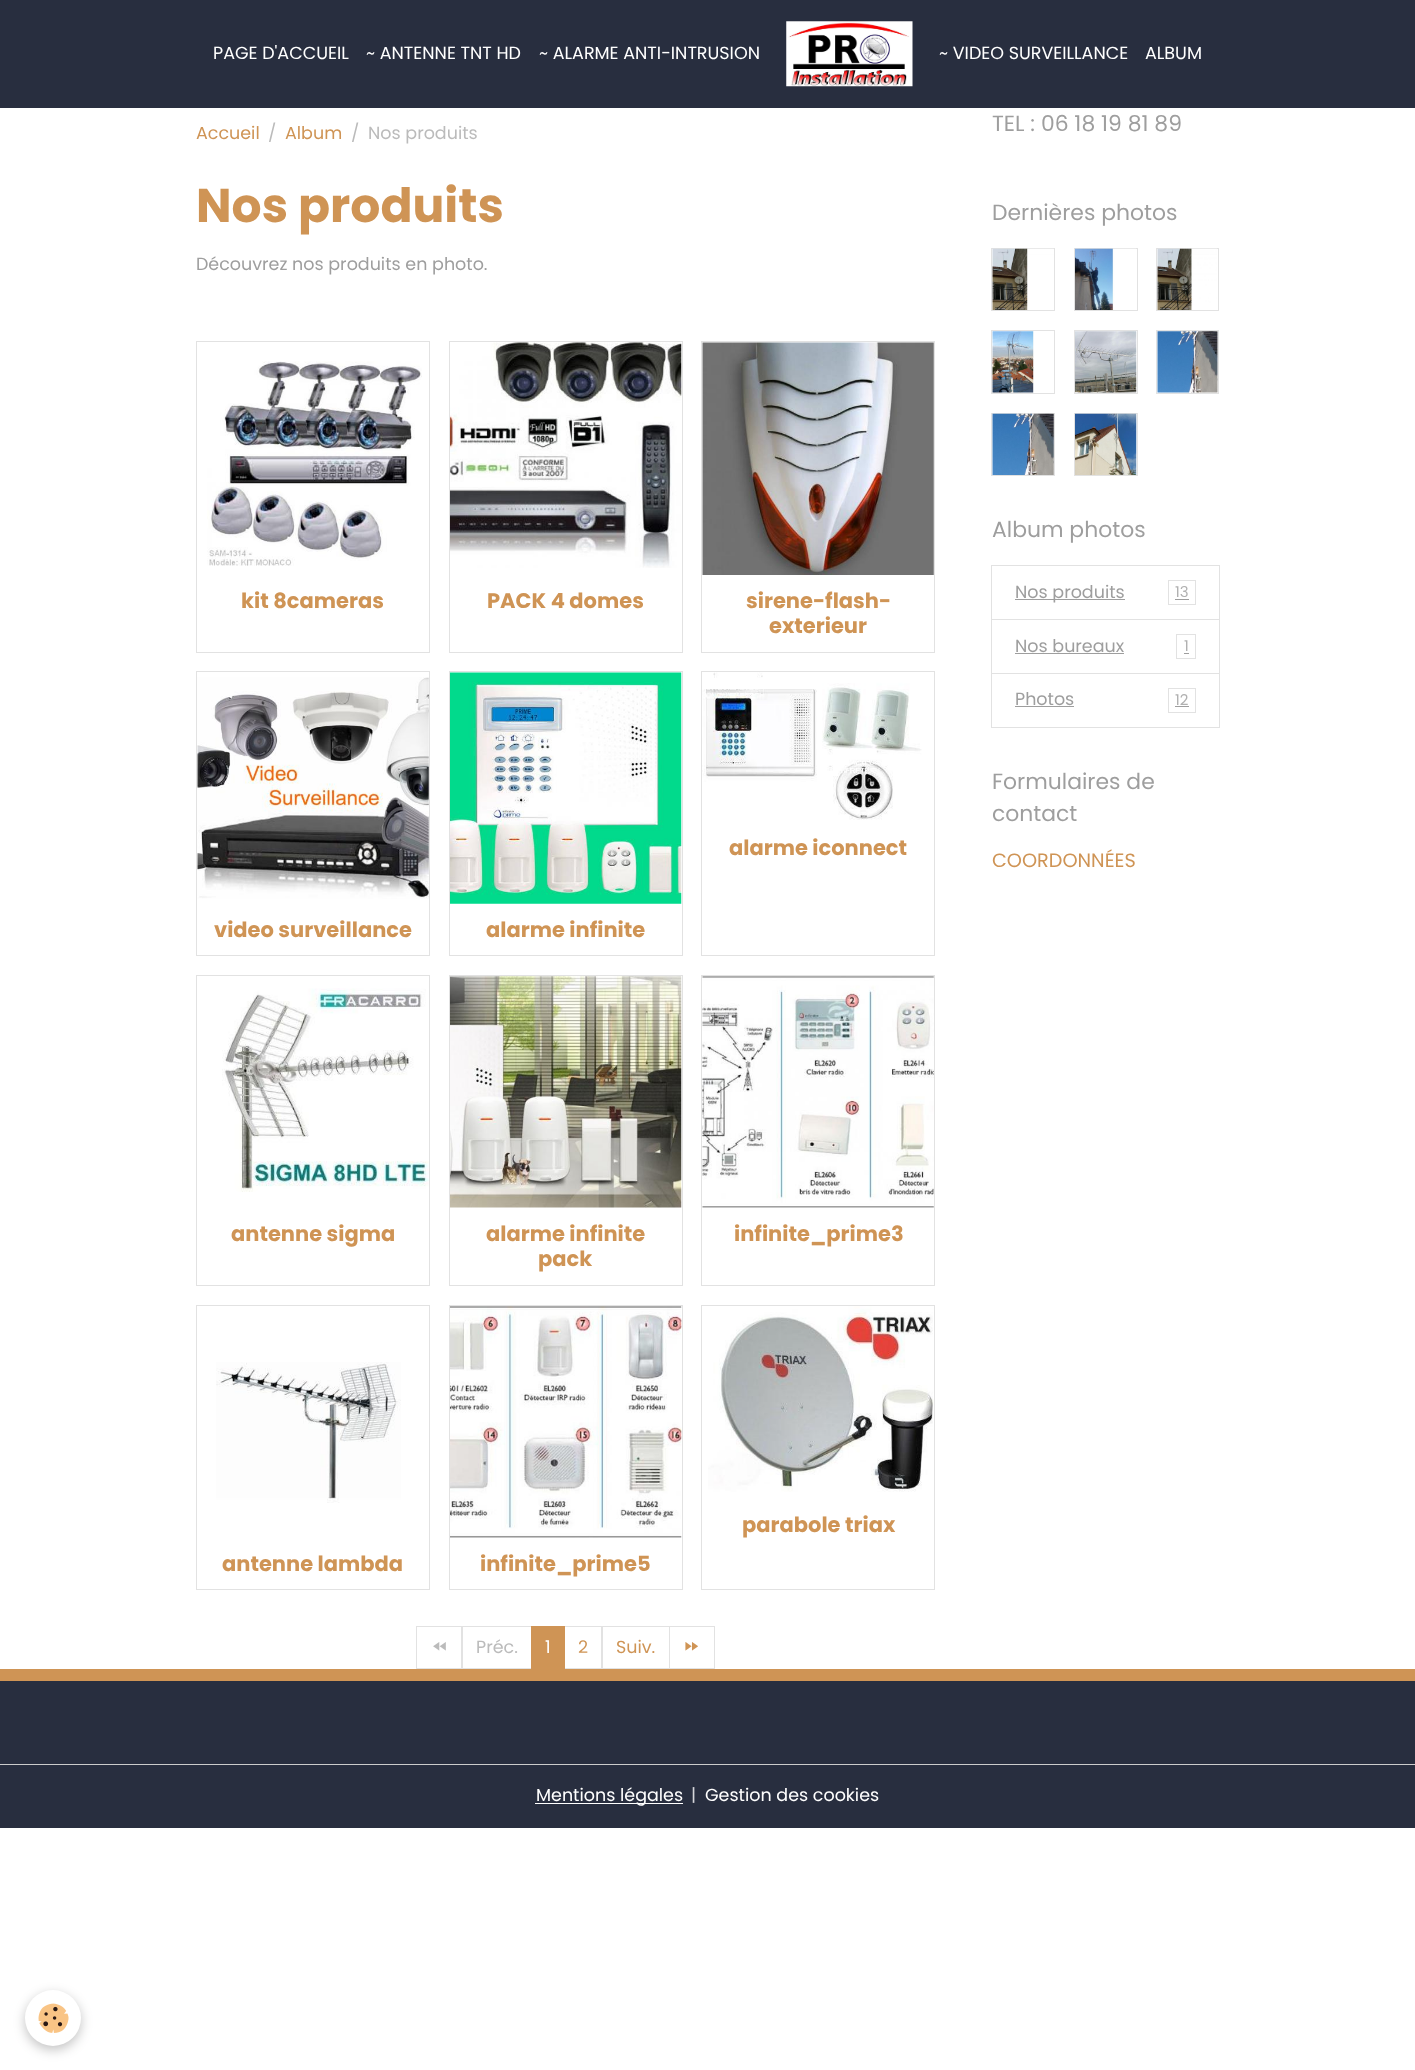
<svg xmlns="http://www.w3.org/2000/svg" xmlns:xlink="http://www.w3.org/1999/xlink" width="1415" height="2070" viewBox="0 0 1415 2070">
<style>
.cls-1{font:17.5px Poppins;fill:#ffffff}
.cls-2{font:17.5px Poppins;fill:#cf9455}
.cls-3{font:17.5px Poppins;fill:#bbbbbb}
.cls-4{font:bold 47.25px Poppins;fill:#cf9455}
.cls-5{font:17.5px Poppins;fill:#9e9e9e}
.cls-6{font:bold 21px Poppins;fill:#cf9455}
.cls-7{font:21.9px Poppins;fill:#9e9e9e}
.cls-8{font:15px Poppins;fill:#b1b1b1}
.cls-9{font:19.25px Poppins;fill:#cf9455}
.cls-10{font:17.5px Poppins;fill:#d4d5d9}
</style>
<rect width="100%" height="100%" fill="#ffffff"/>
<rect fill="#282e3f" x="0" y="0" width="1415" height="108"/>
<image xlink:href="image0.png" x="786" y="21" width="127" height="66"/>
<rect fill="none" stroke="#e2e2e2" x="196.5" y="341.5" width="233" height="311"/>
<image xlink:href="image1.png" x="207" y="361" width="215" height="205"/>
<rect fill="none" stroke="#e2e2e2" x="449.5" y="341.5" width="233" height="311"/>
<image xlink:href="image2.png" x="450" y="342" width="232" height="226"/>
<rect fill="none" stroke="#e2e2e2" x="701.5" y="341.5" width="233" height="311"/>
<image xlink:href="image3.png" x="702" y="342" width="232" height="233"/>
<rect fill="none" stroke="#e2e2e2" x="701.5" y="671.5" width="233" height="284"/>
<image xlink:href="image4.png" x="702" y="672" width="220" height="148"/>
<rect fill="none" stroke="#e2e2e2" x="196.5" y="671.5" width="233" height="284"/>
<image xlink:href="image5.png" x="197" y="677" width="232" height="222"/>
<rect fill="none" stroke="#e2e2e2" x="449.5" y="671.5" width="233" height="284"/>
<image xlink:href="image6.png" x="450" y="672" width="232" height="232"/>
<rect fill="none" stroke="#e2e2e2" x="196.5" y="975.5" width="233" height="310"/>
<image xlink:href="image7.png" x="222" y="988" width="207" height="204"/>
<rect fill="none" stroke="#e2e2e2" x="449.5" y="975.5" width="233" height="310"/>
<image xlink:href="image8.png" x="450" y="976" width="232" height="232"/>
<rect fill="none" stroke="#e2e2e2" x="701.5" y="975.5" width="233" height="310"/>
<image xlink:href="image9.png" x="702" y="976" width="232" height="232"/>
<rect fill="none" stroke="#e2e2e2" x="701.5" y="1305.5" width="233" height="284"/>
<image xlink:href="image10.png" x="708" y="1306" width="226" height="186"/>
<rect fill="none" stroke="#e2e2e2" x="196.5" y="1305.5" width="233" height="284"/>
<image xlink:href="image11.png" x="216" y="1362" width="185" height="141"/>
<rect fill="none" stroke="#e2e2e2" x="449.5" y="1305.5" width="233" height="284"/>
<image xlink:href="image12.png" x="450" y="1306" width="232" height="232"/>
<rect fill="none" stroke="#e2e2e2" x="416.5" y="1626.5" width="46" height="42"/>
<image xlink:href="image13.png" x="433" y="1642" width="13" height="9"/>
<rect fill="none" stroke="#e2e2e2" x="461.5" y="1626.5" width="71" height="42"/>
<rect fill="none" stroke="#e2e2e2" x="564.5" y="1626.5" width="38" height="42"/>
<rect fill="#cf9455" x="531" y="1626" width="34" height="43"/>
<rect fill="none" stroke="#e2e2e2" x="601.5" y="1626.5" width="68" height="42"/>
<rect fill="none" stroke="#e2e2e2" x="669.5" y="1626.5" width="45" height="42"/>
<image xlink:href="image14.png" x="685" y="1642" width="13" height="9"/>
<rect fill="none" stroke="#e2e2e2" x="991.5" y="248.5" width="63" height="62"/>
<image xlink:href="image15.png" x="992" y="248" width="62" height="62"/>
<rect fill="none" stroke="#e2e2e2" x="1074.5" y="248.5" width="63" height="62"/>
<image xlink:href="image16.png" x="1075" y="248" width="61" height="62"/>
<rect fill="none" stroke="#e2e2e2" x="1156.5" y="248.5" width="62" height="62"/>
<image xlink:href="image17.png" x="1157" y="248" width="60" height="62"/>
<rect fill="none" stroke="#e2e2e2" x="991.5" y="330.5" width="63" height="63"/>
<image xlink:href="image18.png" x="992" y="331" width="42" height="62"/>
<rect fill="none" stroke="#e2e2e2" x="1074.5" y="330.5" width="63" height="63"/>
<image xlink:href="image19.png" x="1075" y="331" width="62" height="62"/>
<rect fill="none" stroke="#e2e2e2" x="1156.5" y="330.5" width="62" height="63"/>
<image xlink:href="image20.png" x="1157" y="331" width="61" height="62"/>
<rect fill="none" stroke="#e2e2e2" x="991.5" y="413.5" width="63" height="62"/>
<image xlink:href="image21.png" x="992" y="413" width="62" height="62"/>
<rect fill="none" stroke="#e2e2e2" x="1074.5" y="413.5" width="63" height="62"/>
<image xlink:href="image22.png" x="1075" y="413" width="62" height="62"/>
<rect fill="none" stroke="#e2e2e2" x="991.5" y="565.5" width="228" height="54"/>
<rect fill="#9e9e9e" x="1015" y="599" width="110" height="1"/>
<rect fill="none" stroke="#e2e2e2" x="1168.5" y="580.5" width="27" height="24"/>
<rect fill="#9e9e9e" x="1175" y="599" width="14" height="1"/>
<rect fill="none" stroke="#e2e2e2" x="991.5" y="619.5" width="228" height="54"/>
<rect fill="#9e9e9e" x="1015" y="653" width="109" height="1"/>
<rect fill="none" stroke="#e2e2e2" x="1176.5" y="634.5" width="19" height="24"/>
<rect fill="#9e9e9e" x="1184" y="653" width="5" height="1"/>
<rect fill="none" stroke="#e2e2e2" x="991.5" y="673.5" width="228" height="54"/>
<rect fill="#9e9e9e" x="1015" y="706" width="59" height="1"/>
<rect fill="none" stroke="#e2e2e2" x="1168.5" y="688.5" width="27" height="24"/>
<rect fill="#9e9e9e" x="1175" y="706" width="14" height="1"/>
<rect fill="#282e3f" x="0" y="1681" width="1415" height="147"/>
<rect fill="#cf9455" x="0" y="1669" width="1415" height="12"/>
<rect fill="#cccccc" x="0" y="1764" width="1415" height="1"/>
<rect fill="#ffffff" x="535" y="1803" width="148" height="1"/>
<rect fill="#000000" fill-opacity="0.24" filter="blur(6px)" x="25" y="1994" width="56" height="56" rx="28"/>
<circle fill="#ffffff" cx="53" cy="2018" r="28"/>
<image xlink:href="image23.png" x="38" y="2003" width="31" height="30"/>
<text class="cls-1" x="213" y="59">PAGE D'ACCUEIL</text>
<text class="cls-1" x="366" y="59">~ ANTENNE TNT HD</text>
<text class="cls-1" x="539" y="59">~ ALARME ANTI-INTRUSION</text>
<text class="cls-1" x="939" y="59">~ VIDEO SURVEILLANCE</text>
<text class="cls-1" x="1145" y="59">ALBUM</text>
<text class="cls-2" x="196" y="139">Accueil</text>
<text class="cls-3" x="268" y="139">/</text>
<text class="cls-2" x="285" y="139">Album</text>
<text class="cls-3" x="351" y="139">/</text>
<text class="cls-3" x="368" y="139">Nos produits</text>
<text class="cls-4" x="196" y="222">Nos produits</text>
<text class="cls-5" x="196" y="270">Découvrez nos produits en photo.</text>
<text class="cls-6" x="241" y="608">kit 8cameras</text>
<text class="cls-6" x="487" y="608">PACK 4 domes</text>
<text class="cls-6" x="746" y="608">sirene-flash-</text>
<text class="cls-6" x="769" y="633">exterieur</text>
<text class="cls-6" x="729" y="855">alarme iconnect</text>
<text class="cls-6" x="214" y="937">video surveillance</text>
<text class="cls-6" x="486" y="937">alarme infinite</text>
<text class="cls-6" x="231" y="1241">antenne sigma</text>
<text class="cls-6" x="486" y="1241">alarme infinite</text>
<text class="cls-6" x="538" y="1266">pack</text>
<text class="cls-6" x="734" y="1241">infinite_prime3</text>
<text class="cls-6" x="742" y="1532">parabole triax</text>
<text class="cls-6" x="222" y="1571">antenne lambda</text>
<text class="cls-6" x="480" y="1571">infinite_prime5</text>
<text class="cls-3" x="476" y="1653">Préc.</text>
<text class="cls-1" x="545" y="1653">1</text>
<text class="cls-2" x="578" y="1653">2</text>
<text class="cls-2" x="616" y="1653">Suiv.</text>
<text class="cls-7" x="992" y="131">TEL : 06 18 19 81 89</text>
<text class="cls-7" x="992" y="220">Dernières photos</text>
<text class="cls-7" x="992" y="537">Album photos</text>
<text class="cls-5" x="1015" y="598">Nos produits</text>
<text class="cls-8" x="1175" y="597">13</text>
<text class="cls-5" x="1015" y="652">Nos bureaux</text>
<text class="cls-8" x="1184" y="651">1</text>
<text class="cls-5" x="1015" y="705">Photos</text>
<text class="cls-8" x="1175" y="705">12</text>
<text class="cls-7"><tspan x="992" y="789">Formulaires de</tspan><tspan x="992" y="821">contact</tspan></text>
<text class="cls-9" x="992" y="867">COORDONNÉES</text>
<text class="cls-1" x="536" y="1801">Mentions légales</text>
<text class="cls-10" x="691" y="1801">|</text>
<text class="cls-1" x="705" y="1801">Gestion des cookies</text>
</svg>
